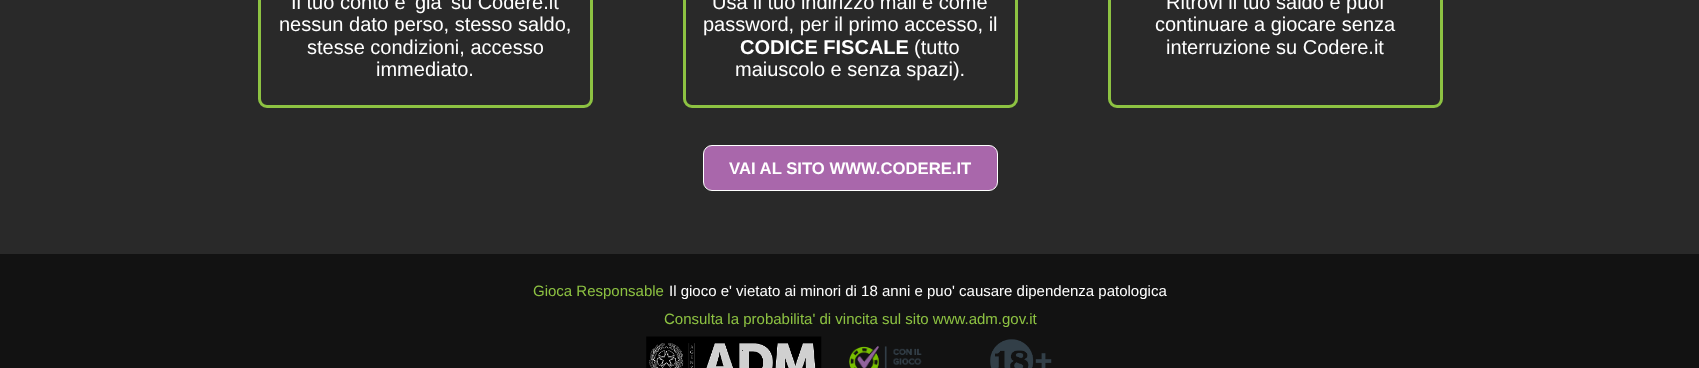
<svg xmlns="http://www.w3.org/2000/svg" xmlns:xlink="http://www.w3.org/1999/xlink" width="1699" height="368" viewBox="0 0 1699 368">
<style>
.cls-1{font:20px Liberation Sans;fill:#ffffff}
.cls-2{font:bold 20px Liberation Sans;fill:#ffffff}
.cls-3{font:bold 16.7px Liberation Sans;fill:#ffffff}
.cls-4{font:15px Liberation Sans;fill:#8dc242}
.cls-5{font:15px Liberation Sans;fill:#ffffff}
</style>
<rect width="100%" height="100%" fill="#292929"/>
<rect fill="none" stroke="#8dc242" stroke-width="3" x="259.5" y="-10.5" width="332" height="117" rx="7.5"/>
<rect fill="none" stroke="#8dc242" stroke-width="3" x="684.5" y="-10.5" width="332" height="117" rx="7.5"/>
<rect fill="none" stroke="#8dc242" stroke-width="3" x="1109.5" y="-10.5" width="332" height="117" rx="7.5"/>
<rect fill="#a967ab" stroke="#ffffff" x="703.5" y="145.5" width="294" height="45" rx="8.5"/>
<rect fill="#121212" x="0" y="254" width="1699" height="114"/>
<image xlink:href="image0.png" x="646" y="336" width="176" height="32"/>
<image xlink:href="image1.png" x="849" y="346" width="73" height="22"/>
<image xlink:href="image2.png" x="990" y="339" width="62" height="29"/>
<text class="cls-1" x="291" y="9">Il tuo conto e' gia' su Codere.it</text>
<text class="cls-1" x="279" y="31">nessun dato perso, stesso saldo,</text>
<text class="cls-1" x="307" y="54">stesse condizioni, accesso</text>
<text class="cls-1" x="376" y="76">immediato.</text>
<text class="cls-1" x="712" y="9">Usa il tuo indirizzo mail e come</text>
<text class="cls-1" x="703" y="31">password, per il primo accesso, il</text>
<text class="cls-2" x="740" y="54">CODICE FISCALE</text>
<text class="cls-1" x="914" y="54">(tutto</text>
<text class="cls-1" x="735" y="76">maiuscolo e senza spazi).</text>
<text class="cls-1" x="1166" y="9">Ritrovi il tuo saldo e puoi</text>
<text class="cls-1" x="1155" y="31">continuare a giocare senza</text>
<text class="cls-1" x="1166" y="54">interruzione su Codere.it</text>
<text class="cls-3" x="729" y="174">VAI AL SITO WWW.CODERE.IT</text>
<text class="cls-4" x="533" y="296">Gioca Responsable</text>
<text class="cls-5" x="669" y="296">Il gioco e' vietato ai minori di 18 anni e puo' causare dipendenza patologica</text>
<text class="cls-4" x="664" y="324">Consulta la probabilita' di vincita sul sito www.adm.gov.it</text>
</svg>
